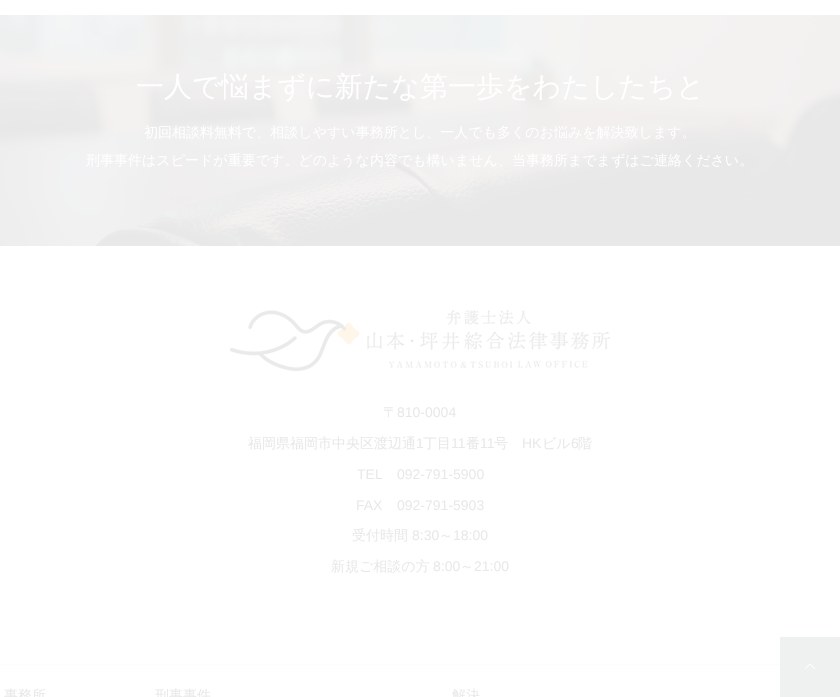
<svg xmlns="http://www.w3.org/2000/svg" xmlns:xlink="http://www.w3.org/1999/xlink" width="840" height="697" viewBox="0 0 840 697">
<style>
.cls-1{font:500 28px WenQuanYi Zen Hei;fill:#ffffff}
.cls-2{font:500 14px WenQuanYi Zen Hei;fill:#ffffff}
.cls-3{font:500 14px WenQuanYi Zen Hei;fill:#e8e8e8}
.cls-4{font:14px Liberation Sans;fill:#e8e8e8}
</style>
<rect width="100%" height="100%" fill="#ffffff"/>
<image xlink:href="image0.png" x="0" y="15" width="840" height="231"/>
<rect fill="#fcfcfc" x="0" y="664" width="780" height="1"/>
<image xlink:href="image1.png" x="230" y="310" width="380" height="61"/>
<rect fill="#eff1f1" x="780" y="637" width="60" height="60"/>
<image xlink:href="image2.png" x="804" y="663" width="12" height="6"/>
<text class="cls-1" x="136" y="96">一人で悩まずに新たな第一歩をわたしたちと</text>
<text class="cls-2" x="144" y="137">初回相談料無料で、相談しやすい事務所とし、一人でも多くのお悩みを解決致します。</text>
<text class="cls-2" x="86" y="165">刑事事件はスピードが重要です。どのような内容でも構いません、当事務所までまずはご連絡ください。</text>
<text class="cls-3" x="383" y="417">〒</text>
<text class="cls-4" x="397" y="417">810‐0004</text>
<text class="cls-3" x="248" y="448">福岡県福岡市中央区渡辺通</text>
<text class="cls-4" x="416" y="448">1</text>
<text class="cls-3" x="423" y="448">丁目</text>
<text class="cls-4" x="451" y="448">11</text>
<text class="cls-3" x="466" y="448">番</text>
<text class="cls-4" x="480" y="448">11</text>
<text class="cls-3" x="494" y="448">号</text>
<text class="cls-4" x="522" y="448">HK</text>
<text class="cls-3" x="542" y="448">ビル</text>
<text class="cls-4" x="571" y="448">6</text>
<text class="cls-3" x="578" y="448">階</text>
<text class="cls-4" x="357" y="479">TEL</text>
<text class="cls-4" x="397" y="479">092-791-5900</text>
<text class="cls-4" x="356" y="510">FAX</text>
<text class="cls-4" x="397" y="510">092-791-5903</text>
<text class="cls-3" x="352" y="540">受付時間</text>
<text class="cls-4" x="412" y="540">8:30</text>
<text class="cls-3" x="439" y="540">～</text>
<text class="cls-4" x="453" y="540">18:00</text>
<text class="cls-3" x="331" y="571">新規ご相談の方</text>
<text class="cls-4" x="433" y="571">8:00</text>
<text class="cls-3" x="460" y="571">～</text>
<text class="cls-4" x="474" y="571">21:00</text>
<text class="cls-3" x="4" y="700">事務所</text>
<text class="cls-3" x="155" y="700">刑事事件</text>
<text class="cls-3" x="452" y="700">解決</text>
</svg>
